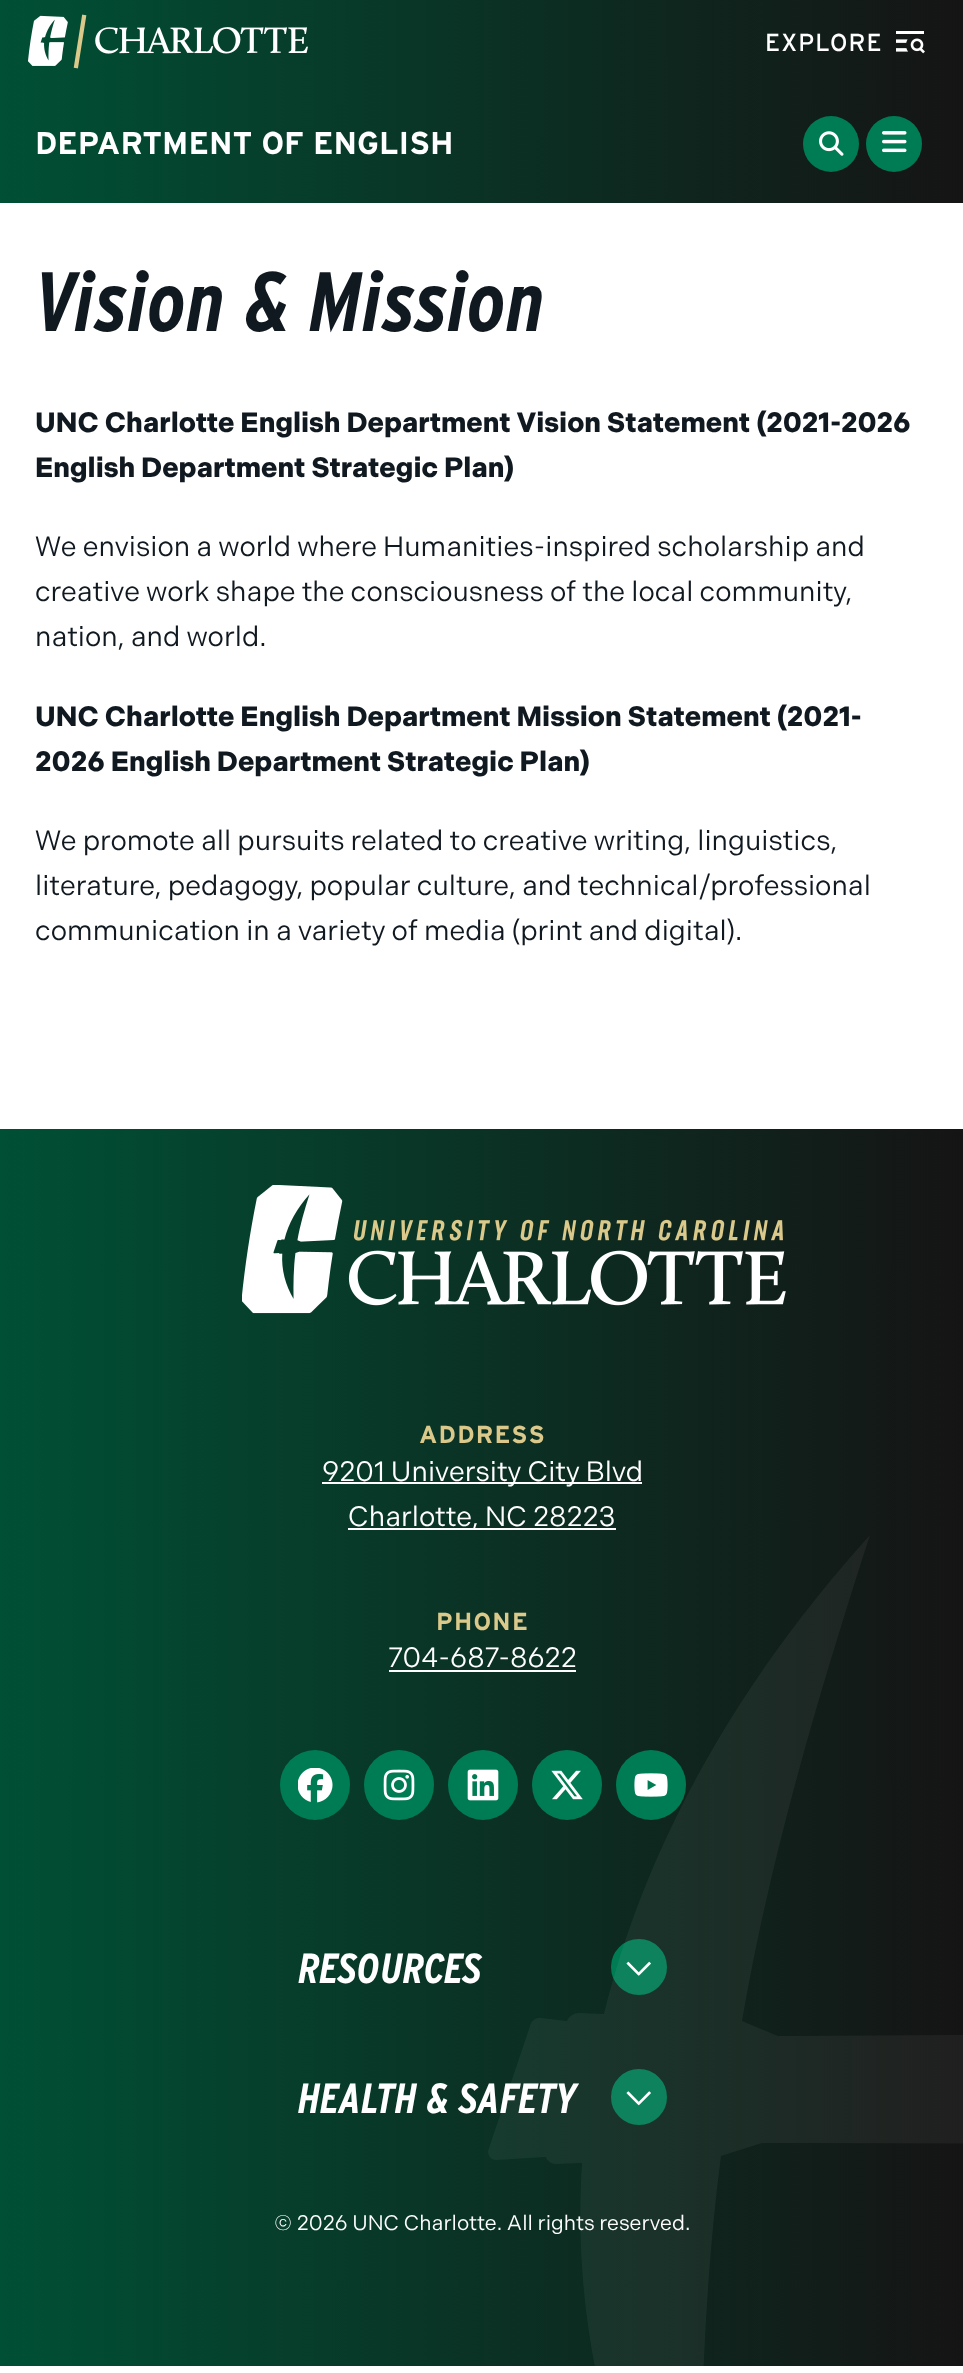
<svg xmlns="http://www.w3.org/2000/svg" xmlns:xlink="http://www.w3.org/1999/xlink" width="963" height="2373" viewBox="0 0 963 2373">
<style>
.cls-1{font:24.5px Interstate;letter-spacing:1px;fill:#ffffff}
.cls-2{font:bold 31.5px Interstate;fill:#ffffff}
.cls-3{font:italic bold 84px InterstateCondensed;fill:#101820}
.cls-4{font:bold 28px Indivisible;fill:#101820}
.cls-5{font:28px Indivisible;fill:#101820}
.cls-6{font:bold 24.5px Interstate;letter-spacing:1.25px;fill:#dac98a}
.cls-7{font:28px Indivisible;fill:#ffffff}
.cls-8{font:italic bold 42px InterstateCondensed;fill:#ffffff}
.cls-9{font:21px Indivisible;fill:#ffffff}
</style>
<defs>
<linearGradient id="g1" gradientUnits="userSpaceOnUse" x1="0" y1="102" x2="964" y2="101"><stop offset="0" stop-color="#005035"/><stop offset="1" stop-color="#151414"/></linearGradient>
<linearGradient id="g2" gradientUnits="userSpaceOnUse" x1="0" y1="1747" x2="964" y2="1747"><stop offset="0" stop-color="#005035"/><stop offset="1" stop-color="#151414"/></linearGradient>
</defs>
<rect width="100%" height="100%" fill="#ffffff"/>
<rect fill="url(#g1)" x="0" y="0" width="963" height="203"/>
<image xlink:href="image0.png" x="28" y="14" width="280" height="55"/>
<image xlink:href="image1.png" x="896" y="31" width="29" height="23"/>
<circle fill="#007c54" cx="831" cy="144" r="28"/>
<image xlink:href="image2.png" x="819" y="131" width="25" height="25"/>
<circle fill="#007c54" cx="894" cy="144" r="28"/>
<image xlink:href="image3.png" x="882" y="131" width="25" height="22"/>
<rect fill="url(#g2)" x="0" y="1129" width="963" height="1237"/>
<image xlink:href="image4.png" x="242" y="1185" width="544" height="129"/>
<rect fill="#ffffff" x="322" y="1482" width="320" height="2"/>
<rect fill="#ffffff" x="348" y="1528" width="268" height="2"/>
<rect fill="#ffffff" x="389" y="1670" width="187" height="2"/>
<circle fill="#007c54" cx="315" cy="1785" r="35"/>
<image xlink:href="image5.png" x="298" y="1768" width="35" height="35"/>
<circle fill="#007c54" cx="399" cy="1785" r="35"/>
<image xlink:href="image6.png" x="383" y="1769" width="32" height="32"/>
<circle fill="#007c54" cx="483" cy="1785" r="35"/>
<image xlink:href="image7.png" x="467" y="1769" width="32" height="32"/>
<circle fill="#007c54" cx="567" cy="1785" r="35"/>
<image xlink:href="image8.png" x="551" y="1770" width="32" height="30"/>
<circle fill="#007c54" cx="651" cy="1785" r="35"/>
<image xlink:href="image9.png" x="634" y="1773" width="34" height="24"/>
<circle fill="#007c54" stroke="#007c54" stroke-width="4" cx="639" cy="1967" r="26"/>
<image xlink:href="image10.png" x="626" y="1961" width="25" height="15"/>
<circle fill="#007c54" stroke="#007c54" stroke-width="4" cx="639" cy="2097" r="26"/>
<image xlink:href="image11.png" x="626" y="2091" width="25" height="15"/>
<path fill="#ffffff" fill-opacity="0.05" d="M721 2156C700 2319 699 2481 701 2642C615 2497 571 2335 582 2163L556 2164C551 2164 547 2161 546 2157L496 2160C491 2160 488 2156 488 2151L530 2026C531 2021 536 2017 541 2018L567 2021C569 2016 574 2013 579 2013L604 2014C646 1843 739 1680 870 1535C818 1696 770 1858 742 2021L778 2036L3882 2019L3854 2149L762 2143Z"/>
<text class="cls-1" x="765" y="51">EXPLORE</text>
<text class="cls-2" x="35" y="154">DEPARTMENT OF ENGLISH</text>
<text class="cls-3" x="35" y="331">Vision &amp; Mission</text>
<text class="cls-4" x="35" y="432">UNC Charlotte English Department Vision Statement</text>
<text class="cls-4" x="756" y="432">(2021-2026</text>
<text class="cls-4" x="35" y="477">English Department Strategic Plan)</text>
<text class="cls-5"><tspan x="35" y="556">We envision a world where Humanities-inspired scholarship and</tspan><tspan x="35" y="601">creative work shape the consciousness of the local community,</tspan><tspan x="35" y="646">nation, and world.</tspan></text>
<text class="cls-4"><tspan x="35" y="726">UNC Charlotte English Department Mission Statement (2021-</tspan><tspan x="35" y="771">2026 English Department Strategic Plan)</tspan></text>
<text class="cls-5"><tspan x="35" y="850">We promote all pursuits related to creative writing, linguistics,</tspan><tspan x="35" y="895">literature, pedagogy, popular culture, and technical/professional</tspan><tspan x="35" y="940">communication in a variety of media (print and digital).</tspan></text>
<text class="cls-6" x="419" y="1443">ADDRESS</text>
<text class="cls-7" x="322" y="1481">9201 University City Blvd</text>
<text class="cls-7" x="348" y="1526">Charlotte, NC 28223</text>
<text class="cls-6" x="436" y="1630">PHONE</text>
<text class="cls-7" x="388" y="1667">704-687-8622</text>
<text class="cls-8" x="298" y="1983">RESOURCES</text>
<text class="cls-8" x="298" y="2113">HEALTH &amp; SAFETY</text>
<text class="cls-9" x="274" y="2230">© 2026 UNC Charlotte. All rights reserved.</text>
</svg>
